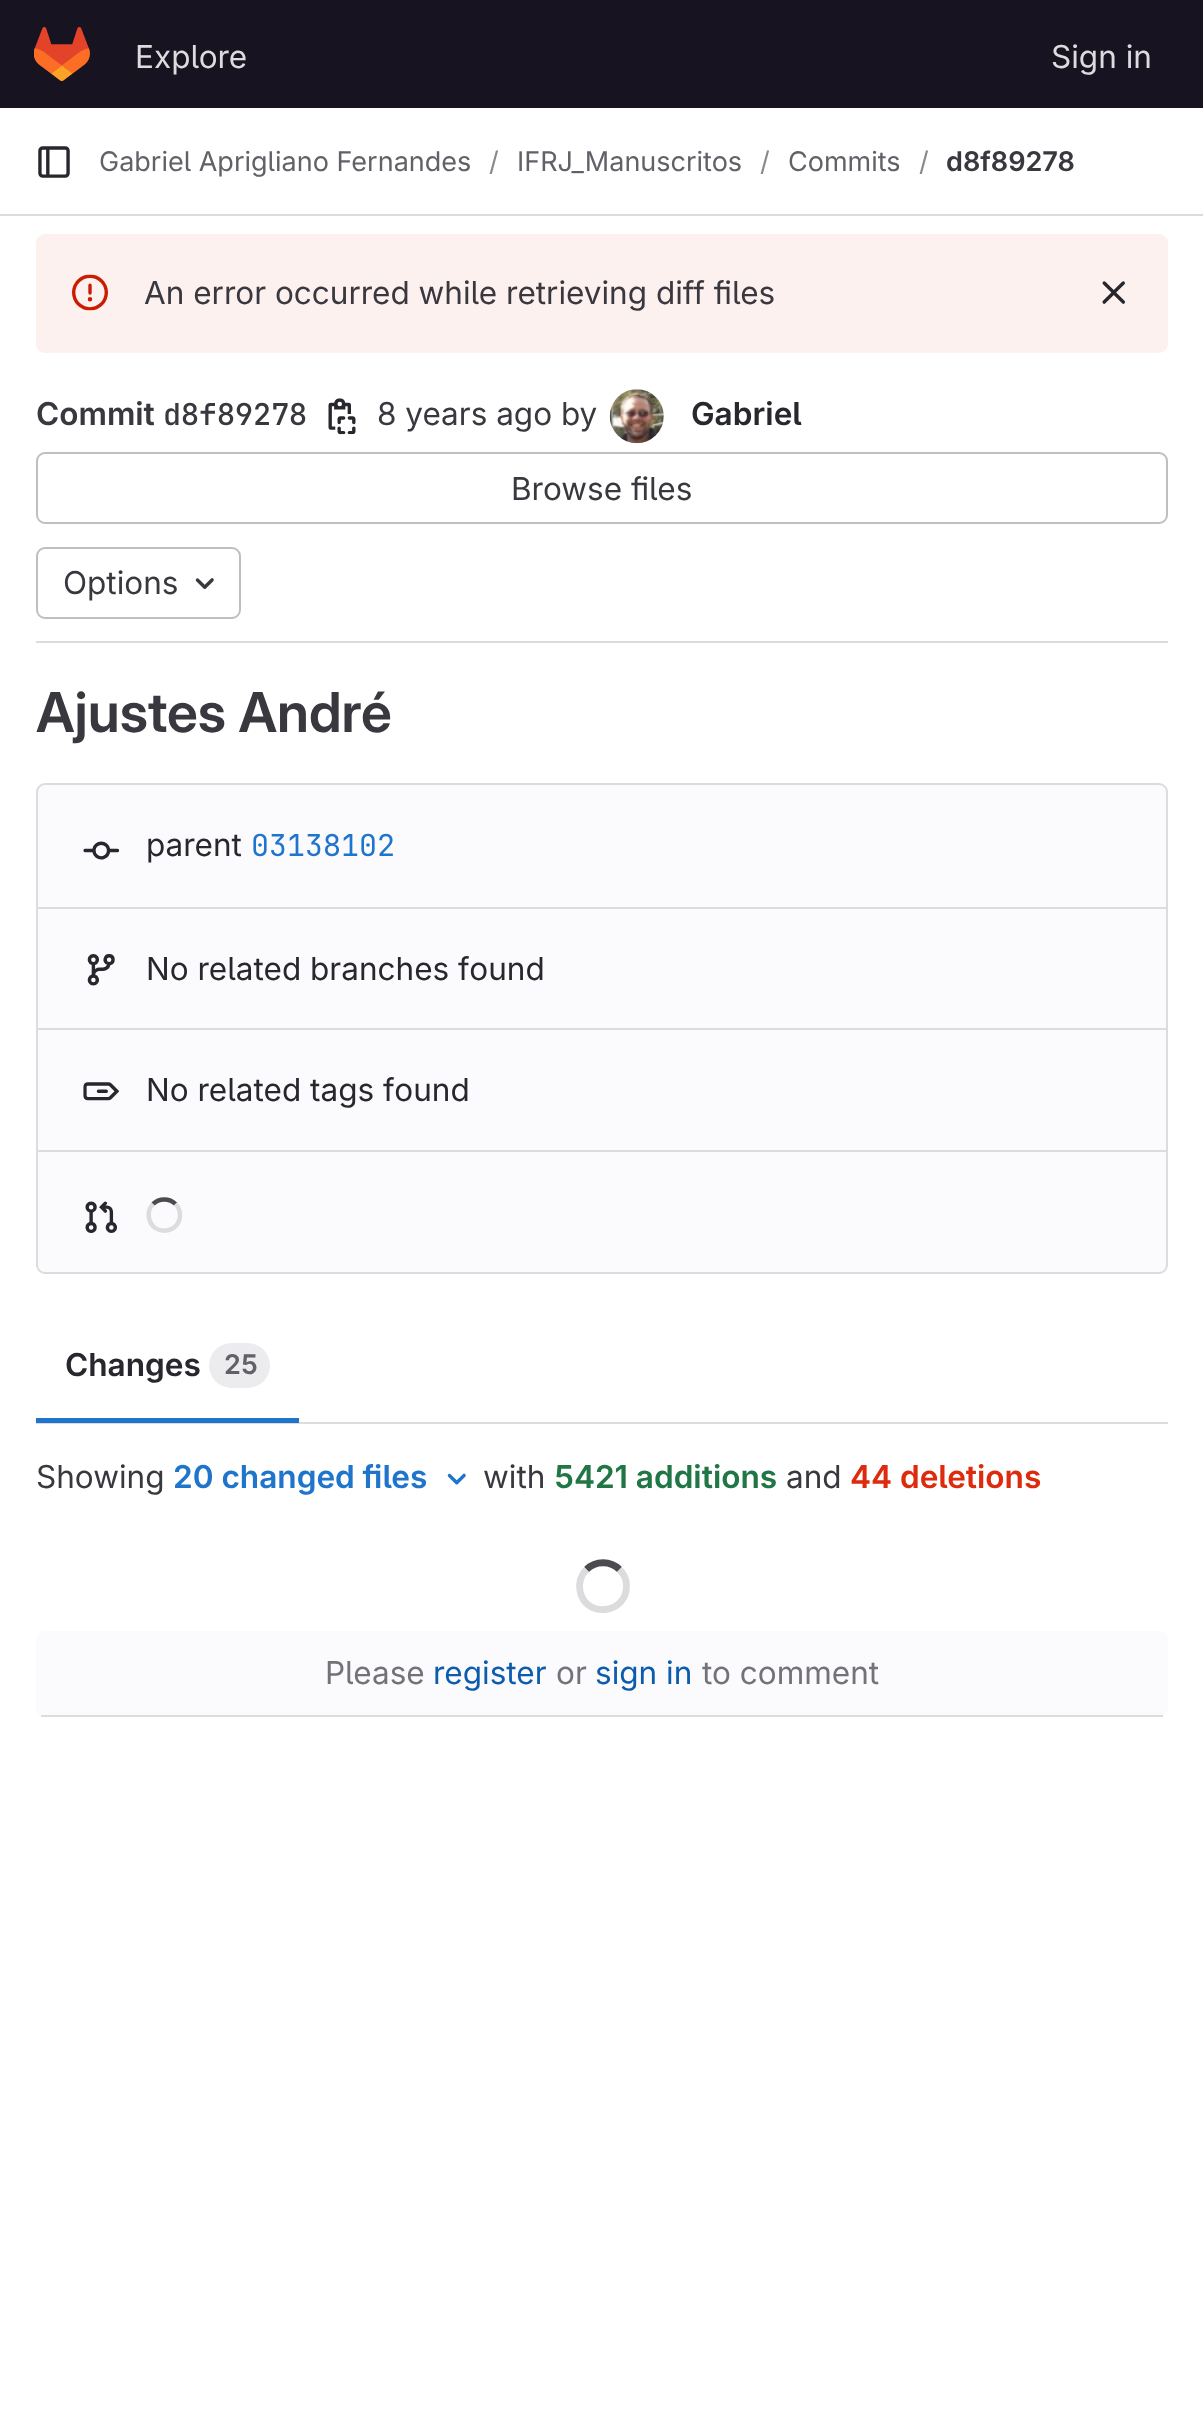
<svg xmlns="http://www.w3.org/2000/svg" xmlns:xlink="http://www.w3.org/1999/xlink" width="1203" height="2426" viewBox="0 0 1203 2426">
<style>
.cls-1{font:31.5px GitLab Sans;fill:#dcdcde}
.cls-2{font:27px GitLab Sans;fill:#626168}
.cls-3{font:27px GitLab Sans;fill:#89888d}
.cls-4{font:600 27px GitLab Sans;fill:#3a383f}
.cls-5{font:31.5px GitLab Sans;fill:#3a383f}
.cls-6{font:600 31.5px GitLab Sans;fill:#3a383f}
.cls-7{font:600 30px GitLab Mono;fill:#3a383f}
.cls-8{font:600 31.5px GitLab Sans;fill:#28272d}
.cls-9{font:600 55px 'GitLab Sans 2';fill:#3a383f}
.cls-10{font:31.5px GitLab Sans;fill:#28272d}
.cls-11{font:30px GitLab Mono;fill:#1f75cb}
.cls-12{font:600 27px GitLab Sans;fill:#626168}
.cls-13{font:600 31.5px GitLab Sans;fill:#1f75cb}
.cls-14{font:600 31.5px GitLab Sans;fill:#217645}
.cls-15{font:600 31.5px GitLab Sans;fill:#dd2b0e}
.cls-16{font:31.5px GitLab Sans;fill:#737278}
.cls-17{font:31.5px GitLab Sans;fill:#0b5cad}
</style>
<rect width="100%" height="100%" fill="#ffffff"/>
<rect fill="#171321" x="0" y="0" width="1203" height="108"/>
<image xlink:href="image0.png" x="34" y="27" width="56" height="54"/>
<rect fill="#dcdcde" x="0" y="214" width="1203" height="2"/>
<image xlink:href="image1.png" x="38" y="146" width="32" height="32"/>
<rect fill="#fcf1ef" x="36" y="234" width="1132" height="119" rx="9"/>
<image xlink:href="image2.png" x="72" y="274" width="36" height="37"/>
<image xlink:href="image3.png" x="1102" y="281" width="23" height="23"/>
<image xlink:href="image4.png" x="328" y="398" width="28" height="37"/>
<circle fill="none" stroke="#e8e7e9" stroke-width="2" cx="637" cy="416" r="26"/>
<image xlink:href="image5.png" x="609" y="389" width="55" height="55"/>
<rect fill="none" stroke="#bfbfc3" stroke-width="2" x="37" y="453" width="1130" height="70" rx="8"/>
<rect fill="none" stroke="#bfbfc3" stroke-width="2" x="37" y="548" width="203" height="70" rx="8"/>
<image xlink:href="image6.png" x="195" y="578" width="19" height="11"/>
<rect fill="#dcdcde" x="36" y="641" width="1132" height="2"/>
<rect fill="#fbfafd" stroke="#dcdcde" stroke-width="2" x="37" y="784" width="1130" height="489" rx="8"/>
<image xlink:href="image7.png" x="83" y="841" width="37" height="19"/>
<rect fill="#dcdcde" x="38" y="907" width="1128" height="2"/>
<image xlink:href="image8.png" x="87" y="954" width="28" height="32"/>
<rect fill="#dcdcde" x="38" y="1028" width="1128" height="2"/>
<image xlink:href="image9.png" x="83" y="1082" width="36" height="19"/>
<rect fill="#dcdcde" x="38" y="1150" width="1128" height="2"/>
<image xlink:href="image10.png" x="85" y="1201" width="32" height="32"/>
<path fill="none" stroke="#4c4b51" stroke-width="4.5" d="M153 1204C159 1198 169.5 1198 175.5 1204"/>
<path fill="none" stroke="#dcdcde" stroke-width="4.5" d="M175.5 1204C178.5 1207 180 1211 180 1215C180 1234 152.5 1236.5 149 1218C148 1213 149.5 1207.5 153 1204"/>
<rect fill="#dcdcde" x="36" y="1422" width="1132" height="2"/>
<rect fill="#ececef" x="209" y="1343" width="61" height="45" rx="22.5"/>
<rect fill="#1f75cb" x="36" y="1418" width="263" height="5"/>
<image xlink:href="image11.png" x="447" y="1473" width="19" height="12"/>
<path fill="none" stroke="#4c4b51" stroke-width="6.8" d="M586.5 1569.5C595.5 1560.5 610.5 1560.5 619.5 1569.5"/>
<path fill="none" stroke="#dcdcde" stroke-width="6.8" d="M619.5 1569.5C624 1574 626.5 1580 626.5 1586C626.5 1614.5 585.5 1618.5 580 1591C578.5 1583 581 1575 586.5 1569.5"/>
<rect fill="#fbfafd" x="36" y="1631" width="1132" height="86" rx="9"/>
<rect fill="#dcdcde" x="41" y="1715" width="1122" height="2"/>
<text class="cls-1" x="135" y="68">Explore</text>
<text class="cls-1" x="1051" y="68">Sign in</text>
<text class="cls-2" x="99" y="171">Gabriel Aprigliano Fernandes</text>
<text class="cls-3" x="489" y="171">/</text>
<text class="cls-2" x="517" y="171">IFRJ_Manuscritos</text>
<text class="cls-3" x="760" y="171">/</text>
<text class="cls-2" x="788" y="171">Commits</text>
<text class="cls-3" x="919" y="171">/</text>
<text class="cls-4" x="946" y="171">d8f89278</text>
<text class="cls-5" x="144" y="304">An error occurred while retrieving diff files</text>
<text class="cls-6" x="36" y="425">Commit</text>
<text class="cls-7" x="163" y="425">d8f89278</text>
<text class="cls-5" x="377" y="425">8 years ago by</text>
<text class="cls-8" x="691" y="425">Gabriel</text>
<text class="cls-5" x="511" y="500">Browse files</text>
<text class="cls-5" x="63" y="594">Options</text>
<text class="cls-9" x="36" y="732">Ajustes André</text>
<text class="cls-10" x="146" y="856">parent</text>
<text class="cls-11" x="251" y="856">03138102</text>
<text class="cls-10" x="146" y="980">No related branches found</text>
<text class="cls-10" x="146" y="1101">No related tags found</text>
<text class="cls-8" x="65" y="1376">Changes</text>
<text class="cls-12" x="224" y="1374">25</text>
<text class="cls-5" x="36" y="1488">Showing</text>
<text class="cls-13" x="173" y="1488">20 changed files</text>
<text class="cls-5" x="483" y="1488">with</text>
<text class="cls-14" x="554" y="1488">5421 additions</text>
<text class="cls-5" x="786" y="1488">and</text>
<text class="cls-15" x="850" y="1488">44 deletions</text>
<text class="cls-16" x="325" y="1684">Please</text>
<text class="cls-17" x="433" y="1684">register</text>
<text class="cls-16" x="556" y="1684">or</text>
<text class="cls-17" x="595" y="1684">sign in</text>
<text class="cls-16" x="702" y="1684">to comment</text>
</svg>
